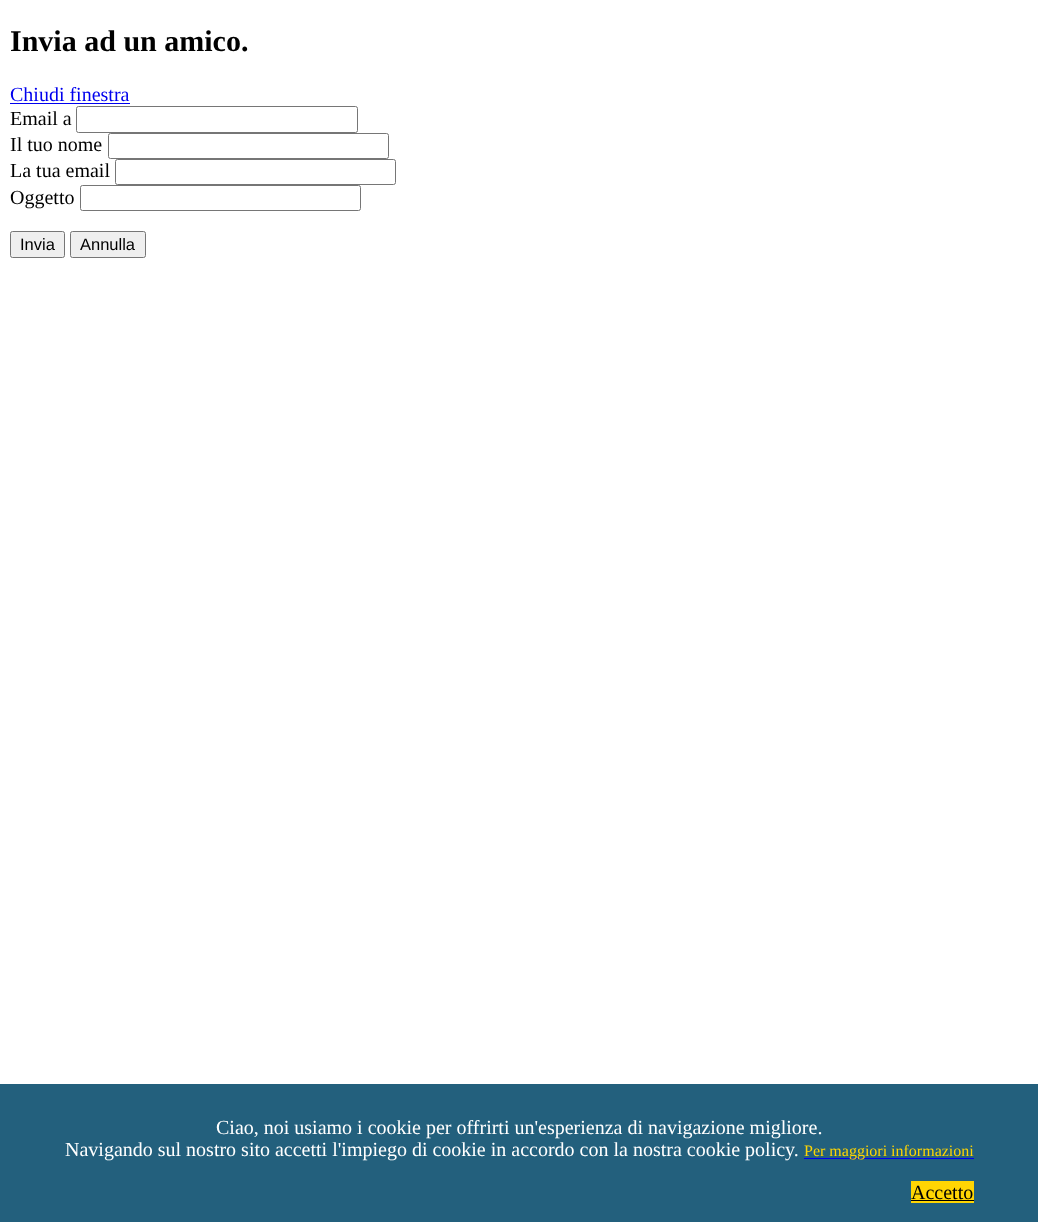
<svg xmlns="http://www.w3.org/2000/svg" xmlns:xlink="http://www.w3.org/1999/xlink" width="1038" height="1222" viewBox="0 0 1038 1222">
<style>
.cls-1{font:bold 30px Liberation Serif;fill:#000000}
.cls-2{font:20px Liberation Serif;fill:#0000ee}
.cls-3{font:20px Liberation Serif;fill:#000000}
.cls-4{font:16.5px Liberation Sans;fill:#000000}
.cls-5{font:20px Liberation Serif;fill:#ffffff}
.cls-6{font:16px Liberation Serif;fill:#ffd503}
</style>
<rect width="100%" height="100%" fill="#ffffff"/>
<rect fill="#0000ee" x="10" y="103" width="120" height="1"/>
<rect fill="none" stroke="#767676" x="76.5" y="106.5" width="281" height="26" rx="2"/>
<rect fill="none" stroke="#767676" x="108.5" y="133.5" width="280" height="25" rx="2"/>
<rect fill="none" stroke="#767676" x="115.5" y="159.5" width="280" height="25" rx="2"/>
<rect fill="none" stroke="#767676" x="80.5" y="185.5" width="280" height="25" rx="2"/>
<rect fill="#efefef" stroke="#767676" x="10.5" y="231.5" width="54" height="26" rx="2"/>
<rect fill="#efefef" stroke="#767676" x="70.5" y="231.5" width="75" height="26" rx="2"/>
<rect fill="#23607d" x="0" y="1084" width="1038" height="138"/>
<rect fill="#0000ee" x="804" y="1158" width="170" height="1"/>
<rect fill="#ffd503" x="911" y="1181" width="63" height="22"/>
<rect fill="#000000" x="911" y="1200" width="63" height="1"/>
<text class="cls-1" x="10" y="51">Invia ad un amico.</text>
<text class="cls-2" x="10" y="101">Chiudi finestra</text>
<text class="cls-3"><tspan x="10" y="125">Email a</tspan><tspan x="10" y="151">Il tuo nome</tspan><tspan x="10" y="177">La tua email</tspan><tspan x="10" y="204">Oggetto</tspan></text>
<text class="cls-4" x="20" y="250">Invia</text>
<text class="cls-4" x="80" y="250">Annulla</text>
<text class="cls-5" x="216" y="1134">Ciao, noi usiamo i cookie per offrirti un'esperienza di navigazione migliore.</text>
<text class="cls-5" x="65" y="1156">Navigando sul nostro sito accetti l'impiego di cookie in accordo con la nostra cookie policy.</text>
<text class="cls-6" x="804" y="1156">Per maggiori informazioni</text>
<text class="cls-3" x="911" y="1199">Accetto</text>
</svg>
